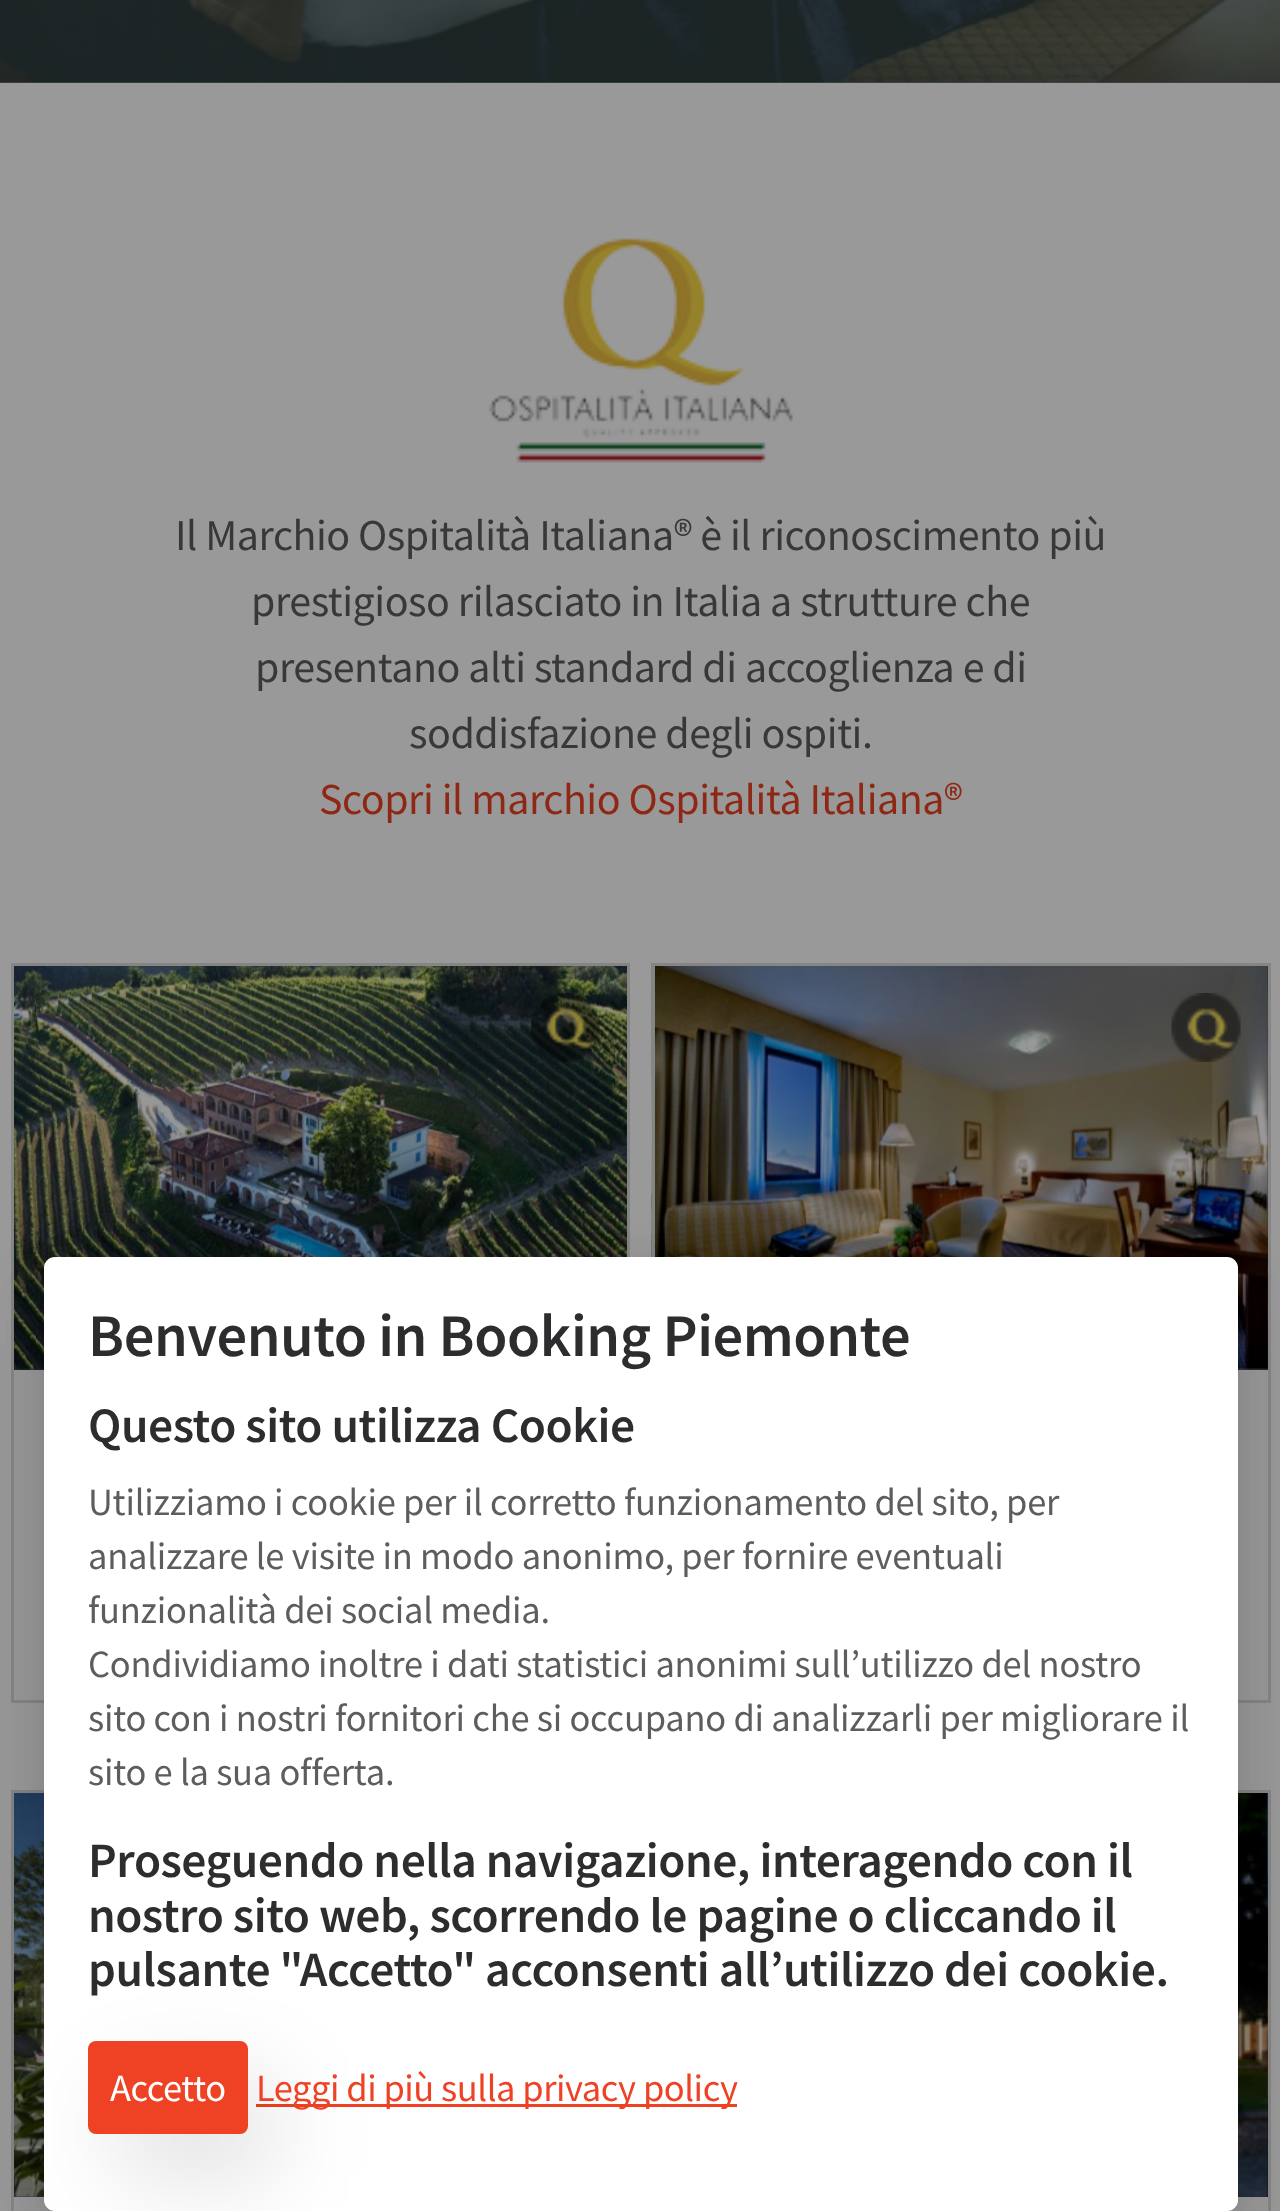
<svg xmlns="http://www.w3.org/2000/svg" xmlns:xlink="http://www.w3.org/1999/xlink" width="1280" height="2211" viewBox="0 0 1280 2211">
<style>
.cls-1{font:44px Source Sans Pro;letter-spacing:-0.45px;fill:#383839}
.cls-2{font:44px Source Sans Pro;letter-spacing:-0.45px;fill:#8f2715}
.cls-3{font:600 60.5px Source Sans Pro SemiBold;letter-spacing:-0.45px;fill:#2d2d2f}
.cls-4{font:600 49.5px Source Sans Pro SemiBold;letter-spacing:-0.45px;fill:#2d2d2f}
.cls-5{font:38.5px Source Sans Pro;letter-spacing:-0.22px;fill:#5d5d5f}
.cls-6{font:38.5px Source Sans Pro;letter-spacing:-0.45px;fill:#ffffff}
.cls-7{font:38.5px Source Sans Pro;letter-spacing:-0.45px;fill:#ef4123}
</style>
<defs>
<linearGradient id="g1" gradientUnits="userSpaceOnUse" x1="641" y1="-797" x2="641" y2="83"><stop offset="0" stop-color="#273333" stop-opacity="0"/><stop offset="0.7" stop-color="#273333" stop-opacity="0.7"/></linearGradient>
</defs>
<rect width="100%" height="100%" fill="#999999"/>
<image xlink:href="image0.png" x="0" y="0" width="1280" height="83"/>
<rect fill="url(#g1)" x="0" y="0" width="1280" height="83"/>
<image xlink:href="image1.png" x="488" y="238" width="305" height="225"/>
<image xlink:href="image2.png" x="14" y="966" width="613" height="404"/>
<rect fill="#858585" x="11" y="963" width="619" height="3"/>
<rect fill="#858585" x="627" y="963" width="3" height="294"/>
<rect fill="#858585" x="11" y="963" width="3" height="407"/>
<image xlink:href="image3.png" x="531" y="993" width="69" height="69"/>
<rect fill="#858585" x="11" y="1700" width="33" height="3"/>
<rect fill="#858585" x="11" y="1370" width="3" height="332"/>
<image xlink:href="image4.png" x="651" y="963" width="617" height="407"/>
<rect fill="#858585" x="652" y="963" width="619" height="3"/>
<rect fill="#858585" x="1268" y="963" width="3" height="739"/>
<rect fill="#858585" x="652" y="963" width="3" height="294"/>
<image xlink:href="image5.png" x="1171" y="993" width="70" height="69"/>
<rect fill="#858585" x="1238" y="1700" width="33" height="3"/>
<image xlink:href="image6.png" x="14" y="1793" width="30" height="404"/>
<rect fill="#858585" x="11" y="1790" width="33" height="3"/>
<rect fill="#858585" x="11" y="1790" width="3" height="421"/>
<image xlink:href="image7.png" x="1238" y="1793" width="30" height="404"/>
<rect fill="#858585" x="1238" y="1790" width="33" height="3"/>
<rect fill="#858585" x="1268" y="1790" width="3" height="421"/>
<rect fill="#000000" fill-opacity="0.08" filter="blur(20.5px)" x="44" y="1271" width="1194" height="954" rx="11"/>
<rect fill="#000000" fill-opacity="0.11" filter="blur(41px)" x="44" y="1298" width="1194" height="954" rx="11"/>
<rect fill="#ffffff" x="44" y="1257" width="1194" height="954" rx="11"/>
<rect fill="#ef4123" x="256" y="2104" width="481" height="3"/>
<rect fill="#000000" fill-opacity="0.12" filter="blur(47px)" x="116" y="2082" width="159" height="93" rx="8"/>
<rect fill="#ef4123" x="88" y="2041" width="160" height="93" rx="8"/>
<text class="cls-1" x="175" y="550">Il Marchio Ospitalità Italiana® è il riconoscimento più</text>
<text class="cls-1" x="251" y="616">prestigioso rilasciato in Italia a strutture che</text>
<text class="cls-1" x="255" y="682">presentano alti standard di accoglienza e di</text>
<text class="cls-1" x="409" y="748">soddisfazione degli ospiti.</text>
<text class="cls-2" x="319" y="814">Scopri il marchio Ospitalità Italiana®</text>
<text class="cls-3" x="88" y="1356">Benvenuto in Booking Piemonte</text>
<text class="cls-4" x="88" y="1442">Questo sito utilizza Cookie</text>
<text class="cls-5"><tspan x="88" y="1515">Utilizziamo i cookie per il corretto funzionamento del sito, per</tspan><tspan x="88" y="1569">analizzare le visite in modo anonimo, per fornire eventuali</tspan><tspan x="88" y="1623">funzionalità dei social media.</tspan><tspan x="88" y="1677">Condividiamo inoltre i dati statistici anonimi sull’utilizzo del nostro</tspan><tspan x="88" y="1731">sito con i nostri fornitori che si occupano di analizzarli per migliorare il</tspan><tspan x="88" y="1785">sito e la sua offerta.</tspan></text>
<text class="cls-4"><tspan x="88" y="1877">Proseguendo nella navigazione, interagendo con il</tspan><tspan x="88" y="1932">nostro sito web, scorrendo le pagine o cliccando il</tspan><tspan x="88" y="1986">pulsante "Accetto" acconsenti all’utilizzo dei cookie.</tspan></text>
<text class="cls-6" x="110" y="2101">Accetto</text>
<text class="cls-7" x="256" y="2101">Leggi di più sulla privacy policy</text>
</svg>
